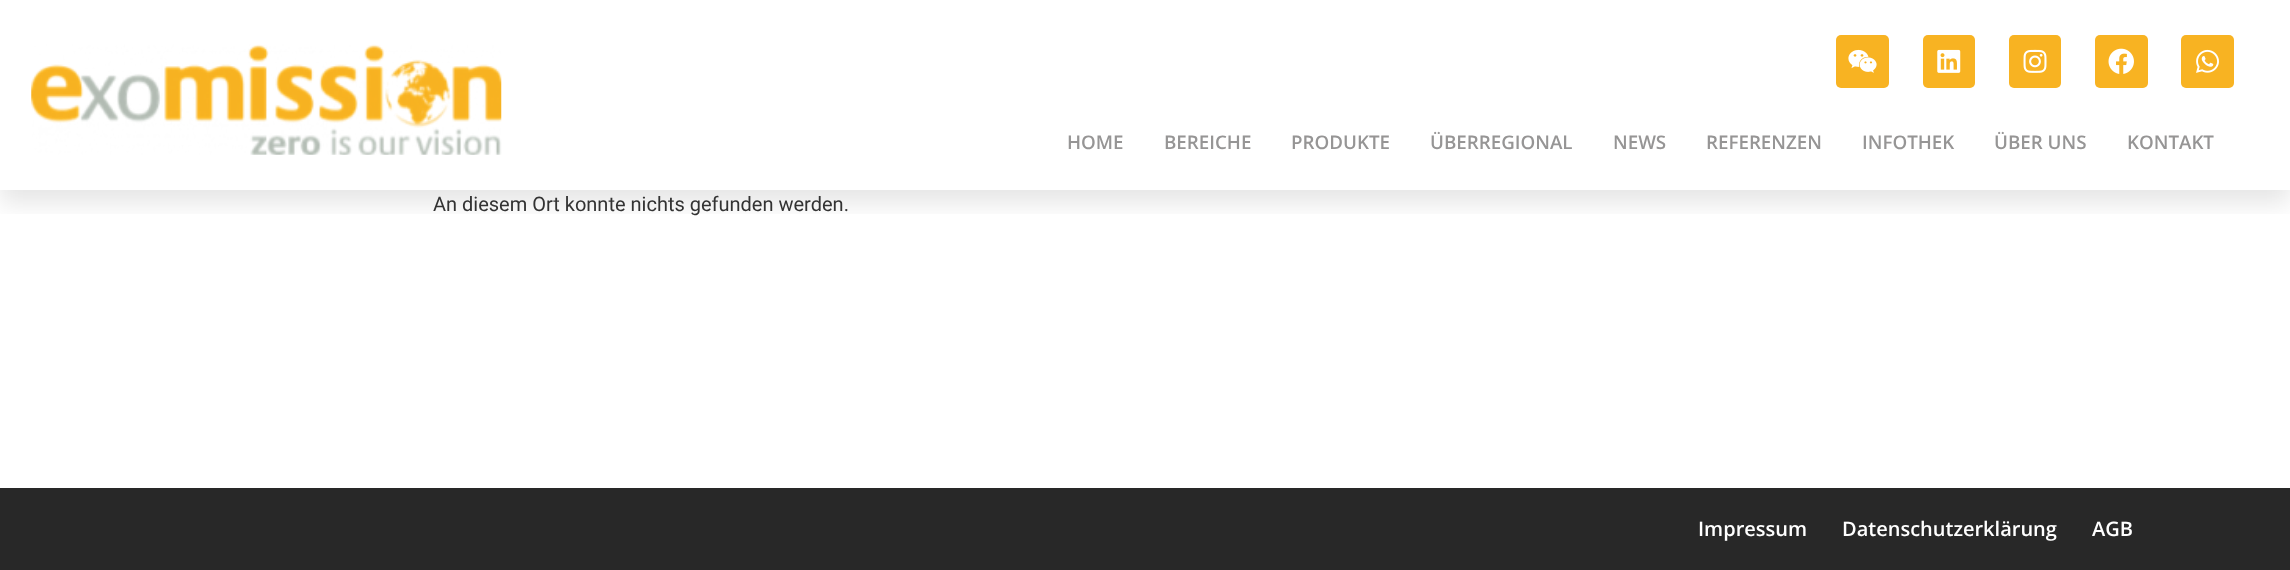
<svg xmlns="http://www.w3.org/2000/svg" xmlns:xlink="http://www.w3.org/1999/xlink" width="2290" height="570" viewBox="0 0 2290 570">
<style>
.cls-1{font:600 18.75px Open Sans;fill:#969595}
.cls-2{font:20px Roboto;fill:#333333}
.cls-3{font:600 20px Open Sans;fill:#ffffff}
</style>
<defs>
<clipPath id="clip1"><rect x="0" y="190" width="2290" height="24"/></clipPath>
</defs>
<rect width="100%" height="100%" fill="#ffffff"/>
<g clip-path="url(#clip1)">
<rect fill="#000000" fill-opacity="0.1" filter="blur(12.5px)" x="0" y="13" width="2290" height="190"/>
</g>
<image xlink:href="image0.png" x="31" y="44" width="471" height="111"/>
<rect fill="#f8b322" x="1836" y="35" width="53" height="53" rx="5"/>
<image xlink:href="image1.png" x="1848" y="49" width="29" height="24"/>
<rect fill="#f8b322" x="1923" y="35" width="52" height="53" rx="5"/>
<image xlink:href="image2.png" x="1937" y="49" width="24" height="24"/>
<rect fill="#f8b322" x="2009" y="35" width="52" height="53" rx="5"/>
<image xlink:href="image3.png" x="2023" y="49" width="24" height="24"/>
<rect fill="#f8b322" x="2095" y="35" width="53" height="53" rx="5"/>
<image xlink:href="image4.png" x="2108" y="48" width="26" height="26"/>
<rect fill="#f8b322" x="2181" y="35" width="53" height="53" rx="5"/>
<image xlink:href="image5.png" x="2196" y="49" width="23" height="24"/>
<rect fill="#282828" x="0" y="488" width="2290" height="82"/>
<text class="cls-1" x="1067" y="149">HOME</text>
<text class="cls-1" x="1164" y="149">BEREICHE</text>
<text class="cls-1" x="1291" y="149">PRODUKTE</text>
<text class="cls-1" x="1430" y="149">ÜBERREGIONAL</text>
<text class="cls-1" x="1613" y="149">NEWS</text>
<text class="cls-1" x="1706" y="149">REFERENZEN</text>
<text class="cls-1" x="1862" y="149">INFOTHEK</text>
<text class="cls-1" x="1994" y="149">ÜBER UNS</text>
<text class="cls-1" x="2127" y="149">KONTAKT</text>
<text class="cls-2" x="433" y="211">An diesem Ort konnte nichts gefunden werden.</text>
<text class="cls-3" x="1698" y="536">Impressum</text>
<text class="cls-3" x="1842" y="536">Datenschutzerklärung</text>
<text class="cls-3" x="2092" y="536">AGB</text>
</svg>
